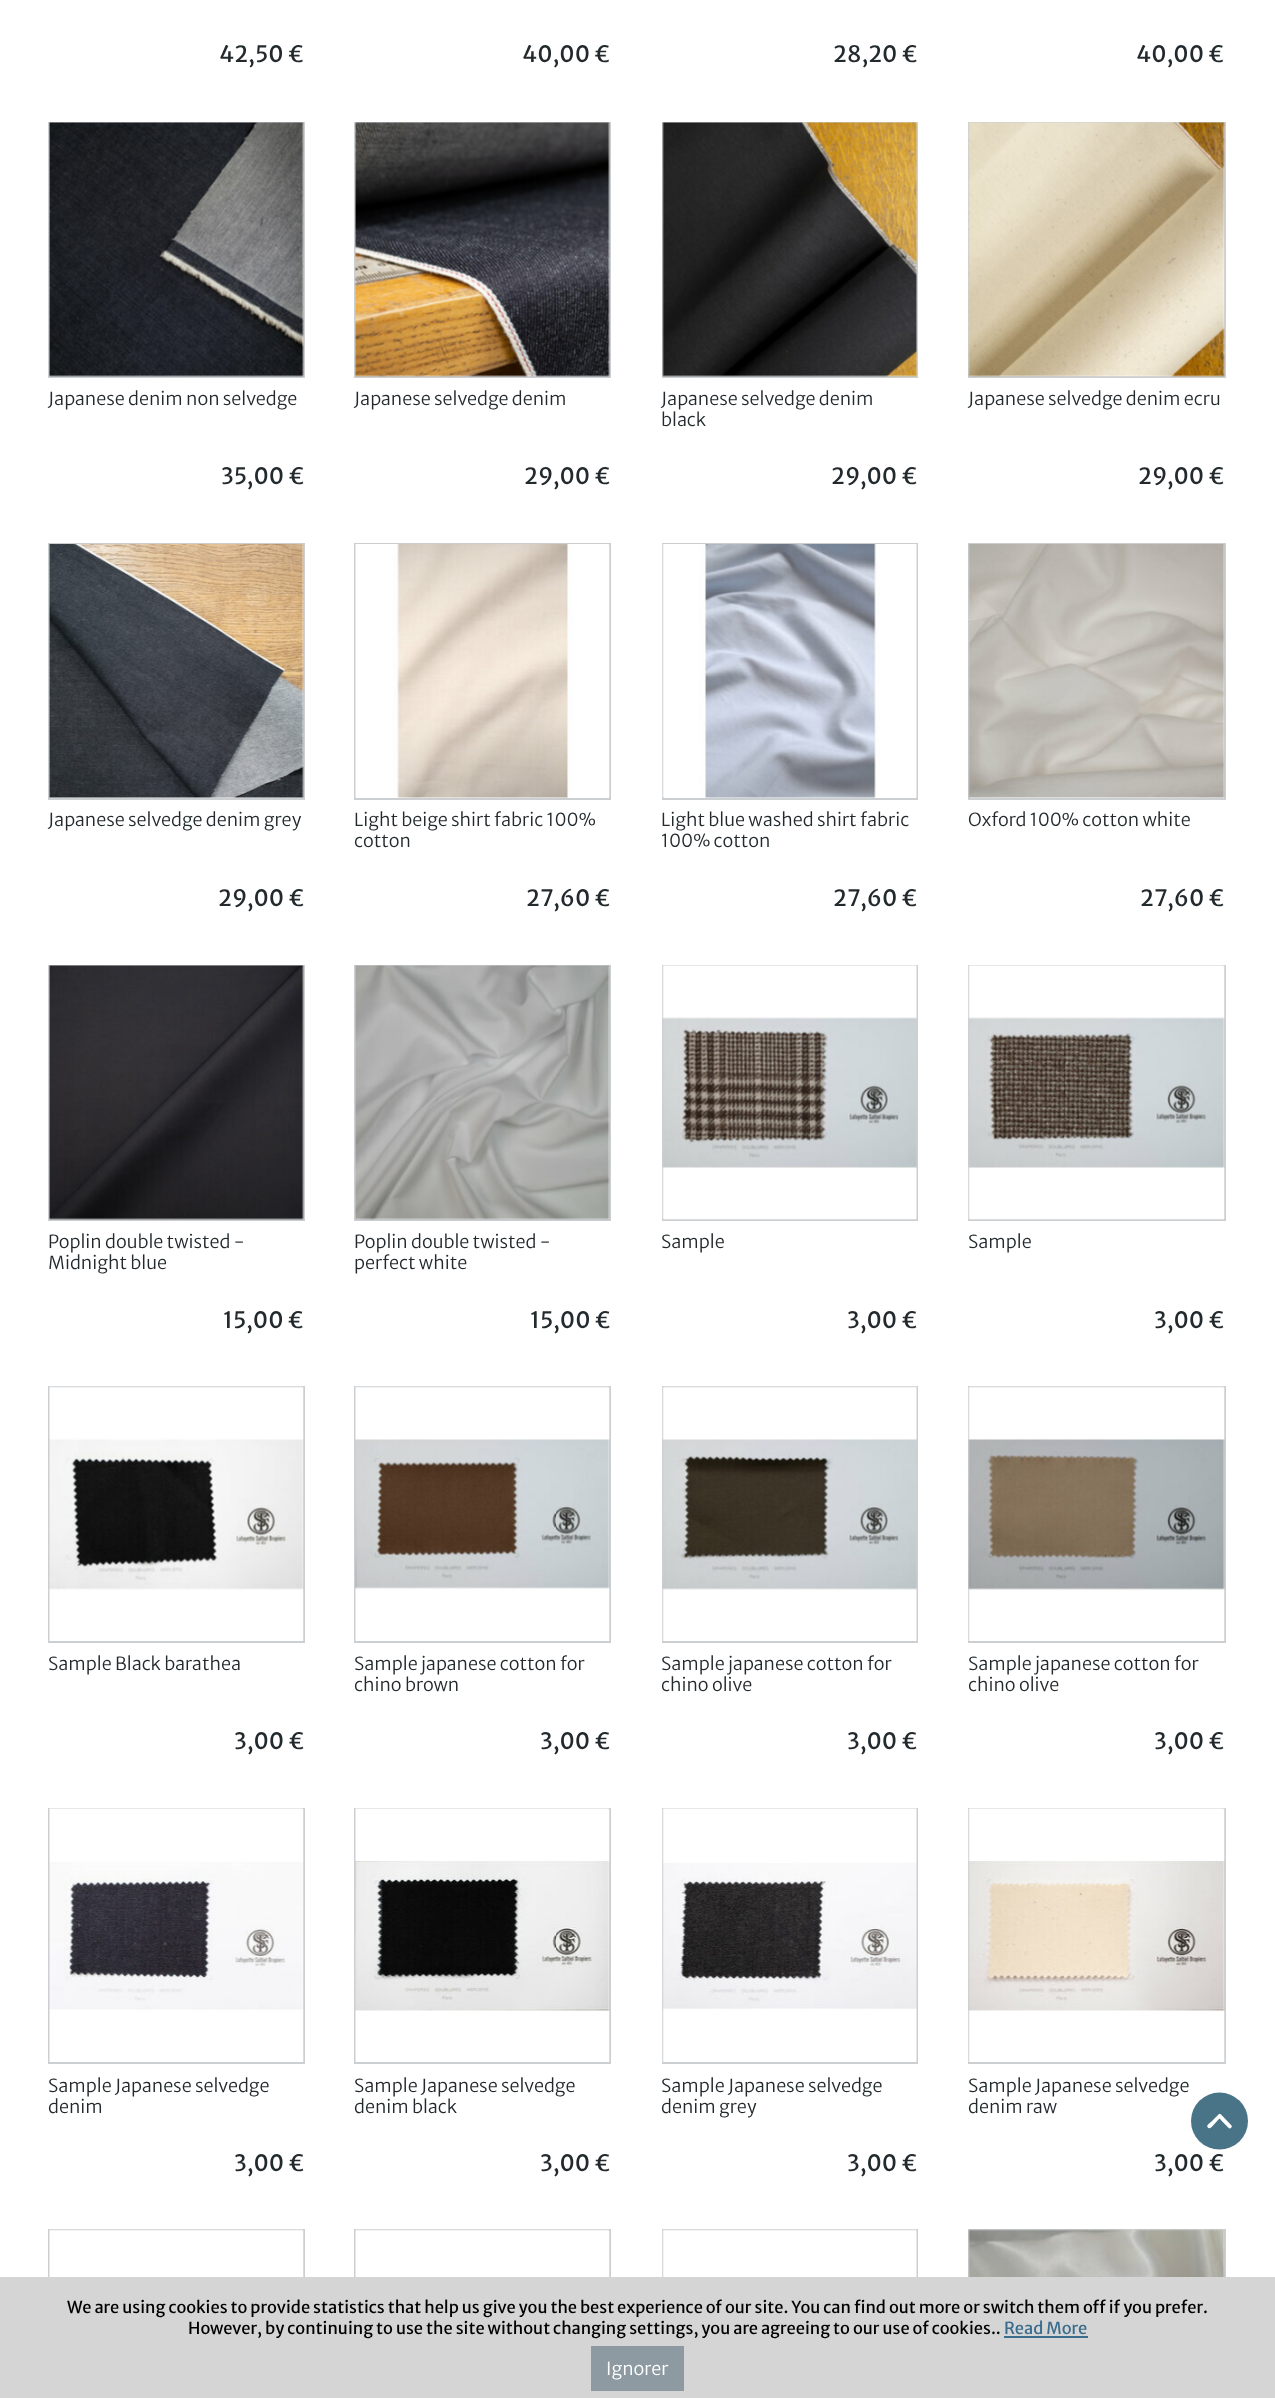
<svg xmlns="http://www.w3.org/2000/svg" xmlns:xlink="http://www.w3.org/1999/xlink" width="1275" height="2398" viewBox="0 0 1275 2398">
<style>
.cls-1{font:22.5px Merriweather Sans;fill:#232a2e}
.cls-2{font:300 18px Merriweather Sans;fill:#232a2e}
.cls-3{font:16.5px Merriweather Sans;fill:#000000}
.cls-4{font:16.5px Merriweather Sans;fill:#3a6c8e}
.cls-5{font:300 18px Merriweather Sans;fill:#ffffff}
</style>
<rect width="100%" height="100%" fill="#ffffff"/>
<rect fill="none" stroke="#cccfd2" stroke-width="2" x="49" y="123" width="255" height="254"/>
<image xlink:href="image0.png" x="49" y="122" width="255" height="255"/>
<rect fill="none" stroke="#cccfd2" stroke-width="2" x="355" y="123" width="255" height="254"/>
<image xlink:href="image1.png" x="355" y="122" width="255" height="255"/>
<rect fill="none" stroke="#cccfd2" stroke-width="2" x="663" y="123" width="254" height="254"/>
<image xlink:href="image2.png" x="662" y="122" width="255" height="255"/>
<rect fill="none" stroke="#cccfd2" stroke-width="2" x="969" y="123" width="256" height="254"/>
<image xlink:href="image3.png" x="968" y="122" width="257" height="255"/>
<rect fill="none" stroke="#cccfd2" stroke-width="2" x="49" y="544" width="255" height="255"/>
<image xlink:href="image4.png" x="49" y="544" width="255" height="254"/>
<rect fill="none" stroke="#cccfd2" stroke-width="2" x="355" y="544" width="255" height="255"/>
<image xlink:href="image5.png" x="355" y="544" width="255" height="254"/>
<rect fill="none" stroke="#cccfd2" stroke-width="2" x="663" y="544" width="254" height="255"/>
<image xlink:href="image6.png" x="662" y="544" width="255" height="254"/>
<rect fill="none" stroke="#cccfd2" stroke-width="2" x="969" y="544" width="256" height="255"/>
<image xlink:href="image7.png" x="968" y="544" width="257" height="254"/>
<rect fill="none" stroke="#cccfd2" stroke-width="2" x="49" y="966" width="255" height="254"/>
<image xlink:href="image8.png" x="49" y="965" width="255" height="255"/>
<rect fill="none" stroke="#cccfd2" stroke-width="2" x="355" y="966" width="255" height="254"/>
<image xlink:href="image9.png" x="355" y="965" width="255" height="255"/>
<rect fill="none" stroke="#cccfd2" stroke-width="2" x="663" y="966" width="254" height="254"/>
<image xlink:href="image10.png" x="662" y="965" width="255" height="255"/>
<rect fill="none" stroke="#cccfd2" stroke-width="2" x="969" y="966" width="256" height="254"/>
<image xlink:href="image11.png" x="968" y="965" width="257" height="255"/>
<rect fill="none" stroke="#cccfd2" stroke-width="2" x="49" y="1387" width="255" height="255"/>
<image xlink:href="image12.png" x="49" y="1386" width="255" height="255"/>
<rect fill="none" stroke="#cccfd2" stroke-width="2" x="355" y="1387" width="255" height="255"/>
<image xlink:href="image13.png" x="355" y="1386" width="255" height="255"/>
<rect fill="none" stroke="#cccfd2" stroke-width="2" x="663" y="1387" width="254" height="255"/>
<image xlink:href="image14.png" x="662" y="1386" width="255" height="255"/>
<rect fill="none" stroke="#cccfd2" stroke-width="2" x="969" y="1387" width="256" height="255"/>
<image xlink:href="image15.png" x="968" y="1386" width="257" height="255"/>
<rect fill="none" stroke="#cccfd2" stroke-width="2" x="49" y="1809" width="255" height="254"/>
<image xlink:href="image16.png" x="49" y="1808" width="255" height="254"/>
<rect fill="none" stroke="#cccfd2" stroke-width="2" x="355" y="1809" width="255" height="254"/>
<image xlink:href="image17.png" x="355" y="1808" width="255" height="254"/>
<rect fill="none" stroke="#cccfd2" stroke-width="2" x="663" y="1809" width="254" height="254"/>
<image xlink:href="image18.png" x="662" y="1808" width="255" height="254"/>
<rect fill="none" stroke="#cccfd2" stroke-width="2" x="969" y="1809" width="256" height="254"/>
<image xlink:href="image19.png" x="968" y="1808" width="257" height="254"/>
<rect fill="none" stroke="#cccfd2" stroke-width="2" x="49" y="2230" width="255" height="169"/>
<image xlink:href="image20.png" x="49" y="2229" width="255" height="48"/>
<rect fill="none" stroke="#cccfd2" stroke-width="2" x="355" y="2230" width="255" height="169"/>
<image xlink:href="image20.png" x="355" y="2229" width="255" height="48"/>
<rect fill="none" stroke="#cccfd2" stroke-width="2" x="663" y="2230" width="254" height="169"/>
<image xlink:href="image21.png" x="662" y="2229" width="255" height="48"/>
<rect fill="none" stroke="#cccfd2" stroke-width="2" x="969" y="2230" width="256" height="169"/>
<image xlink:href="image22.png" x="968" y="2229" width="257" height="48"/>
<circle fill="#497387" cx="1219.5" cy="2121" r="28.5"/>
<path fill="#ffffff" d="M1231.5 2125.5L1222.5 2116C1219.5 2113 1220 2113 1217 2116L1211.5 2121.5C1210.5 2122.5 1206 2125.5 1207.5 2127C1210 2130 1211 2127.5 1213.5 2125L1219.5 2118.5C1221 2120 1228.5 2128 1229.5 2128.5C1231 2128.5 1232.5 2126.5 1231.5 2125.5Z"/>
<rect fill="#d5d5d5" x="0" y="2277" width="1275" height="121"/>
<rect fill="#3a6c8e" x="1004" y="2336" width="84" height="2"/>
<rect fill="#8e9aa2" x="591" y="2346" width="93" height="45"/>
<text class="cls-1" x="219" y="62">42,50 €</text>
<text class="cls-1" x="522" y="62">40,00 €</text>
<text class="cls-1" x="833" y="62">28,20 €</text>
<text class="cls-1" x="1136" y="62">40,00 €</text>
<text class="cls-2" x="48" y="405">Japanese denim non selvedge</text>
<text class="cls-1" x="221" y="484">35,00 €</text>
<text class="cls-2" x="354" y="405">Japanese selvedge denim</text>
<text class="cls-1" x="524" y="484">29,00 €</text>
<text class="cls-2"><tspan x="661" y="405">Japanese selvedge denim</tspan><tspan x="661" y="426">black</tspan></text>
<text class="cls-1" x="831" y="484">29,00 €</text>
<text class="cls-2" x="968" y="405">Japanese selvedge denim ecru</text>
<text class="cls-1" x="1138" y="484">29,00 €</text>
<text class="cls-2" x="48" y="826">Japanese selvedge denim grey</text>
<text class="cls-1" x="218" y="906">29,00 €</text>
<text class="cls-2"><tspan x="354" y="826">Light beige shirt fabric 100%</tspan><tspan x="354" y="847">cotton</tspan></text>
<text class="cls-1" x="526" y="906">27,60 €</text>
<text class="cls-2"><tspan x="661" y="826">Light blue washed shirt fabric</tspan><tspan x="661" y="847">100% cotton</tspan></text>
<text class="cls-1" x="833" y="906">27,60 €</text>
<text class="cls-2" x="968" y="826">Oxford 100% cotton white</text>
<text class="cls-1" x="1140" y="906">27,60 €</text>
<text class="cls-2"><tspan x="48" y="1248">Poplin double twisted -</tspan><tspan x="48" y="1269">Midnight blue</tspan></text>
<text class="cls-1" x="223" y="1328">15,00 €</text>
<text class="cls-2"><tspan x="354" y="1248">Poplin double twisted -</tspan><tspan x="354" y="1269">perfect white</tspan></text>
<text class="cls-1" x="530" y="1328">15,00 €</text>
<text class="cls-2" x="661" y="1248">Sample</text>
<text class="cls-1" x="847" y="1328">3,00 €</text>
<text class="cls-2" x="968" y="1248">Sample</text>
<text class="cls-1" x="1154" y="1328">3,00 €</text>
<text class="cls-2" x="48" y="1670">Sample Black barathea</text>
<text class="cls-1" x="234" y="1749">3,00 €</text>
<text class="cls-2"><tspan x="354" y="1670">Sample japanese cotton for</tspan><tspan x="354" y="1691">chino brown</tspan></text>
<text class="cls-1" x="540" y="1749">3,00 €</text>
<text class="cls-2"><tspan x="661" y="1670">Sample japanese cotton for</tspan><tspan x="661" y="1691">chino olive</tspan></text>
<text class="cls-1" x="847" y="1749">3,00 €</text>
<text class="cls-2"><tspan x="968" y="1670">Sample japanese cotton for</tspan><tspan x="968" y="1691">chino olive</tspan></text>
<text class="cls-1" x="1154" y="1749">3,00 €</text>
<text class="cls-2"><tspan x="48" y="2092">Sample Japanese selvedge</tspan><tspan x="48" y="2113">denim</tspan></text>
<text class="cls-1" x="234" y="2171">3,00 €</text>
<text class="cls-2"><tspan x="354" y="2092">Sample Japanese selvedge</tspan><tspan x="354" y="2113">denim black</tspan></text>
<text class="cls-1" x="540" y="2171">3,00 €</text>
<text class="cls-2"><tspan x="661" y="2092">Sample Japanese selvedge</tspan><tspan x="661" y="2113">denim grey</tspan></text>
<text class="cls-1" x="847" y="2171">3,00 €</text>
<text class="cls-2"><tspan x="968" y="2092">Sample Japanese selvedge</tspan><tspan x="968" y="2113">denim raw</tspan></text>
<text class="cls-1" x="1154" y="2171">3,00 €</text>
<text class="cls-3" x="67" y="2313">We are using cookies to provide statistics that help us give you the best experience of our site. You can find out more or switch them off if you prefer.</text>
<text class="cls-3" x="188" y="2334">However, by continuing to use the site without changing settings, you are agreeing to our use of cookies..</text>
<text class="cls-4" x="1004" y="2334">Read More</text>
<text class="cls-5" x="606" y="2375">Ignorer</text>
</svg>
